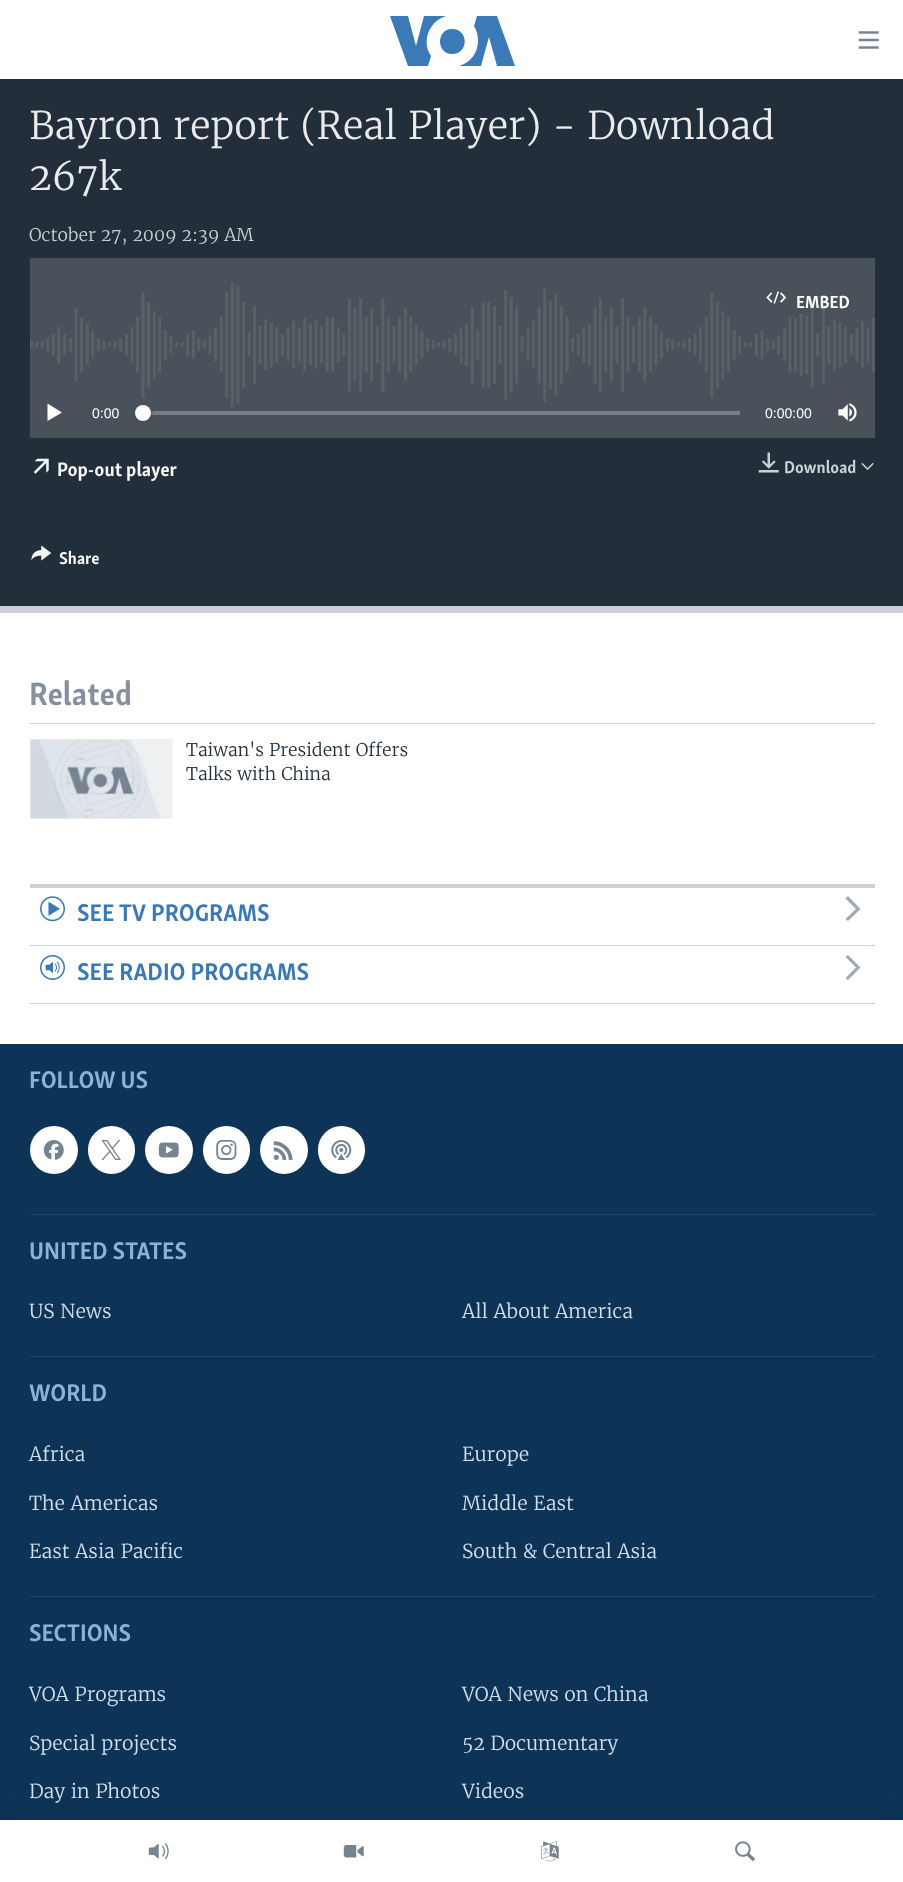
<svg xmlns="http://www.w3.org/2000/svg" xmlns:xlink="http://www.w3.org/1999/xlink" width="903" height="1882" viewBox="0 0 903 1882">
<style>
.cls-1{font:300 38px Merriweather;fill:#ebebeb}
.cls-2{font:300 17.5px Merriweather;fill:#cbd1d6}
.cls-3{font:bold 18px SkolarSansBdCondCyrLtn;fill:#ffffff}
.cls-4{font:14px Liberation Sans;fill:#ffffff}
.cls-5{font:bold 20px SkolarSansBdCondCyrLtn;fill:#f6f7f8}
.cls-6{font:bold 17.5px SkolarSansBdCondCyrLtn;fill:#cbd1d6}
.cls-7{font:bold 17.5px SkolarSansBdCondCyrLtn;fill:#f6f7f8}
.cls-8{font:bold 33px SkolarSansBdCondCyrLtn;fill:#84919d}
.cls-9{font:300 17.5px Merriweather;fill:#222f3a}
.cls-10{font:bold 24.75px SkolarSansBdCondCyrLtn;fill:#3a79b7}
.cls-11{font:bold 24.75px SkolarSansBdCondCyrLtn;fill:#8db3d4}
.cls-12{font:300 19.25px Merriweather;fill:#d1e1ee}
</style>
<rect width="100%" height="100%" fill="#ffffff"/>
<rect fill="#222f3a" x="0" y="79" width="903" height="527"/>
<rect fill="#000000" fill-opacity="0.1" filter="blur(12.5px)" x="0" y="0" width="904" height="79"/>
<rect fill="#ffffff" x="0" y="0" width="903" height="79"/>
<path fill="#3b79b7" d="M431 56L428 66H408L390 16H408L416 46L424 16H446C429 21 421 42 431 56ZM452 29C436 29 436 54 452 54C469 54 469 29 452 29ZM478 41C478 53 470 63 459 66H481L489 37L497 66H515L497 16H477L474 26C477 31 478 36 478 41Z"/>
<image xlink:href="image0.png" x="858" y="31" width="21" height="18"/>
<rect fill="#0d3456" x="0" y="1044" width="903" height="776"/>
<rect fill="#000000" fill-opacity="0.1" filter="blur(12.5px)" x="0" y="1820" width="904" height="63"/>
<rect fill="#ffffff" x="0" y="1820" width="903" height="62"/>
<image xlink:href="image1.png" x="148" y="1843" width="21" height="17"/>
<image xlink:href="image2.png" x="343" y="1845" width="21" height="13"/>
<image xlink:href="image3.png" x="541" y="1841" width="18" height="21"/>
<image xlink:href="image4.png" x="735" y="1841" width="20" height="21"/>
<rect fill="#cbd1d6" x="0" y="606" width="903" height="7"/>
<rect fill="#49525a" x="30" y="258" width="845" height="180"/>
<image xlink:href="image5.png" x="30" y="282" width="845" height="126"/>
<image xlink:href="image6.png" x="766" y="291" width="21" height="13"/>
<path fill="#ffffff" d="M47.5 421L62 412.5L47.5 403.5Z"/>
<rect fill="#777d83" x="144" y="411" width="596" height="4"/>
<rect fill="#414144" filter="blur(2px)" x="135" y="405" width="16" height="16" rx="8"/>
<circle fill="#ffffff" cx="143" cy="413" r="8"/>
<image xlink:href="image7.png" x="838" y="403" width="19" height="19"/>
<image xlink:href="image8.png" x="33" y="458" width="16" height="16"/>
<image xlink:href="image9.png" x="758" y="452" width="21" height="21"/>
<image xlink:href="image10.png" x="861" y="462" width="13" height="8"/>
<image xlink:href="image11.png" x="31" y="545" width="21" height="16"/>
<rect fill="#cbd1d6" x="30" y="723" width="845" height="1"/>
<rect fill="#f6f7f8" x="30" y="739" width="143" height="80"/>
<image xlink:href="image12.png" x="30" y="739" width="142" height="80"/>
<rect fill="#cbd1d6" x="30" y="884" width="845" height="4"/>
<rect fill="#cbd1d6" x="30" y="945" width="845" height="1"/>
<image xlink:href="image13.png" x="40" y="896" width="25" height="26"/>
<path fill="#a1aab4" d="M848 921L860.5 909L848 896L845.5 898.5L856 909L845.5 919Z"/>
<rect fill="#cbd1d6" x="30" y="1003" width="845" height="1"/>
<image xlink:href="image14.png" x="40" y="955" width="25" height="25"/>
<path fill="#a1aab4" d="M848 980L860.5 967.5L848 955L845.5 957L856 967.5L845.5 978Z"/>
<circle fill="#ffffff" cx="54" cy="1150" r="24"/>
<image xlink:href="image15.png" x="43" y="1140" width="21" height="20"/>
<rect fill="#ffffff" x="88" y="1126" width="47" height="48" rx="23.5"/>
<image xlink:href="image16.png" x="101" y="1140" width="20" height="20"/>
<circle fill="#ffffff" cx="169" cy="1150" r="24"/>
<image xlink:href="image17.png" x="158" y="1142" width="21" height="16"/>
<rect fill="#ffffff" x="203" y="1126" width="47" height="48" rx="23.5"/>
<image xlink:href="image18.png" x="216" y="1140" width="21" height="20"/>
<circle fill="#ffffff" cx="284" cy="1150" r="24"/>
<image xlink:href="image19.png" x="273" y="1141" width="20" height="19"/>
<rect fill="#ffffff" x="318" y="1126" width="47" height="48" rx="23.5"/>
<image xlink:href="image20.png" x="331" y="1140" width="21" height="20"/>
<rect fill="#134976" x="30" y="1214" width="845" height="1"/>
<rect fill="#134976" x="30" y="1356" width="845" height="1"/>
<rect fill="#134976" x="30" y="1596" width="845" height="1"/>
<text class="cls-1"><tspan x="29" y="139">Bayron report (Real Player) - Download</tspan><tspan x="29" y="190">267k</tspan></text>
<text class="cls-2" x="29" y="241">October 27, 2009 2:39 AM</text>
<text class="cls-3" x="796" y="308">EMBED</text>
<text class="cls-4" x="92" y="418">0:00</text>
<text class="cls-4" x="765" y="418">0:00:00</text>
<text class="cls-5" x="57" y="476">Pop-out player</text>
<text class="cls-6" x="784" y="473">Download</text>
<text class="cls-7" x="59" y="564">Share</text>
<text class="cls-8" x="29" y="705">Related</text>
<text class="cls-9"><tspan x="186" y="756">Taiwan's President Offers</tspan><tspan x="186" y="780">Talks with China</tspan></text>
<text class="cls-10" x="77" y="921">SEE TV PROGRAMS</text>
<text class="cls-10" x="77" y="980">SEE RADIO PROGRAMS</text>
<text class="cls-11" x="29" y="1088">FOLLOW US</text>
<text class="cls-11" x="29" y="1259">UNITED STATES</text>
<text class="cls-12" x="29" y="1318">US News</text>
<text class="cls-12" x="462" y="1318">All About America</text>
<text class="cls-11" x="29" y="1401">WORLD</text>
<text class="cls-12" x="29" y="1461">Africa</text>
<text class="cls-12" x="462" y="1461">Europe</text>
<text class="cls-12" x="29" y="1510">The Americas</text>
<text class="cls-12" x="462" y="1510">Middle East</text>
<text class="cls-12" x="29" y="1558">East Asia Pacific</text>
<text class="cls-12" x="462" y="1558">South &amp; Central Asia</text>
<text class="cls-11" x="29" y="1641">SECTIONS</text>
<text class="cls-12" x="29" y="1701">VOA Programs</text>
<text class="cls-12" x="462" y="1701">VOA News on China</text>
<text class="cls-12" x="29" y="1750">Special projects</text>
<text class="cls-12" x="462" y="1750">52 Documentary</text>
<text class="cls-12" x="29" y="1798">Day in Photos</text>
<text class="cls-12" x="462" y="1798">Videos</text>
</svg>
